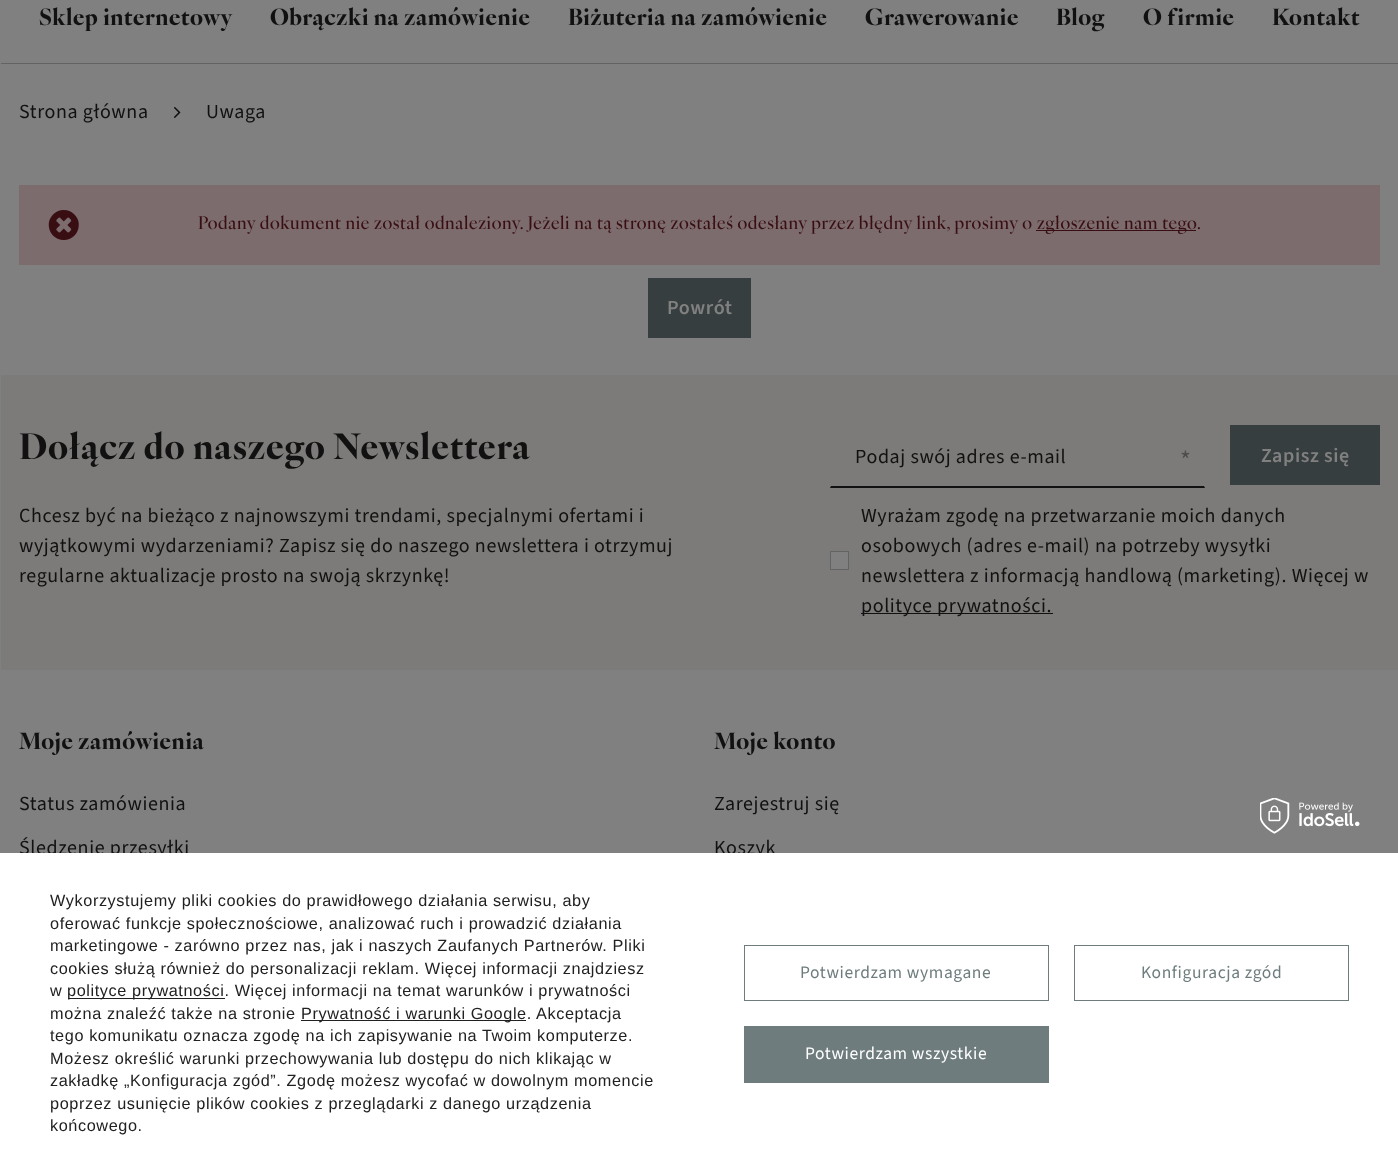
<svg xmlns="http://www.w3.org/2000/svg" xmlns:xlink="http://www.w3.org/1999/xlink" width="1398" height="1174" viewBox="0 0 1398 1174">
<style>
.cls-1{font:bold 22.5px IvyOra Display;letter-spacing:0.6px;fill:#111111}
.cls-2{font:20px 'Source Sans 3';letter-spacing:0.6px;fill:#111111}
.cls-3{font:500 17.5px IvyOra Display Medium;letter-spacing:0.6px;fill:#390e12}
.cls-4{font:600 20px 'Source Sans 3';letter-spacing:0.6px;fill:#808080}
.cls-5{font:bold 35px IvyOra Display;letter-spacing:0.95px;fill:#111111}
.cls-6{font:26px 'Source Sans 3';letter-spacing:0.6px;fill:#4d4d4d}
.cls-7{font:16.25px Liberation Sans;letter-spacing:0.6px;fill:#222121}
.cls-8{font:17.5px 'Source Sans 3';letter-spacing:0.6px;fill:#6e7c7d}
.cls-9{font:17.5px 'Source Sans 3';letter-spacing:0.6px;fill:#ffffff}
</style>
<rect width="100%" height="100%" fill="#808080"/>
<rect fill="#626464" x="1" y="63" width="1397" height="1"/>
<image xlink:href="image0.png" x="173" y="106" width="8" height="12"/>
<rect fill="#7c6c6d" x="19" y="185" width="1361" height="80"/>
<image xlink:href="image1.png" x="48" y="210" width="31" height="30"/>
<rect fill="#390e12" x="1036" y="230" width="160" height="1"/>
<rect fill="#373e3f" x="648" y="278" width="103" height="60"/>
<rect fill="#7d7b79" x="1" y="375" width="1397" height="295"/>
<path fill="#111111" d="M1205 488H830L831 486H1204Z"/>
<rect fill="#373e3f" x="1230" y="425" width="150" height="60"/>
<rect fill="#808080" stroke="#626464" x="830.5" y="551.5" width="18" height="18"/>
<rect fill="#111111" x="861" y="613" width="192" height="1"/>
<image xlink:href="image2.png" x="1260" y="798" width="100" height="36"/>
<text class="cls-1" x="39" y="25">Sklep internetowy</text>
<text class="cls-1" x="270" y="25">Obrączki na zamówienie</text>
<text class="cls-1" x="568" y="25">Biżuteria na zamówienie</text>
<text class="cls-1" x="865" y="25">Grawerowanie</text>
<text class="cls-1" x="1056" y="25">Blog</text>
<text class="cls-1" x="1143" y="25">O firmie</text>
<text class="cls-1" x="1272" y="25">Kontakt</text>
<text class="cls-2" x="19" y="118">Strona główna</text>
<text class="cls-2" x="206" y="118">Uwaga</text>
<text class="cls-3" x="198" y="229">Podany dokument nie został odnaleziony. Jeżeli na tą stronę zostałeś odesłany przez błędny link, prosimy o</text>
<text class="cls-3" x="1037" y="229">zgłoszenie nam tego.</text>
<text class="cls-4" x="667" y="314">Powrót</text>
<text class="cls-5" x="19" y="459">Dołącz do naszego Newslettera</text>
<text class="cls-2"><tspan x="19" y="522">Chcesz być na bieżąco z najnowszymi trendami, specjalnymi ofertami i</tspan><tspan x="19" y="552">wyjątkowymi wydarzeniami? Zapisz się do naszego newslettera i otrzymuj</tspan><tspan x="19" y="582">regularne aktualizacje prosto na swoją skrzynkę!</tspan></text>
<text class="cls-2" x="855" y="463">Podaj swój adres e-mail</text>
<text class="cls-6" x="1180" y="469">*</text>
<text class="cls-4" x="1261" y="462">Zapisz się</text>
<text class="cls-2"><tspan x="861" y="522">Wyrażam zgodę na przetwarzanie moich danych</tspan><tspan x="861" y="552">osobowych (adres e-mail) na potrzeby wysyłki</tspan><tspan x="861" y="582">newslettera z informacją handlową (marketing). Więcej w</tspan><tspan x="861" y="612">polityce prywatności.</tspan></text>
<text class="cls-1" x="19" y="749">Moje zamówienia</text>
<text class="cls-2" x="19" y="810">Status zamówienia</text>
<text class="cls-2" x="19" y="854">Śledzenie przesyłki</text>
<text class="cls-1" x="714" y="749">Moje konto</text>
<text class="cls-2" x="714" y="810">Zarejestruj się</text>
<text class="cls-2" x="714" y="854">Koszyk</text>
<rect fill="#ffffff" x="0" y="853" width="1398" height="321"/>
<text class="cls-7"><tspan x="50" y="906">Wykorzystujemy pliki cookies do prawidłowego działania serwisu, aby</tspan><tspan x="50" y="929">oferować funkcje społecznościowe, analizować ruch i prowadzić działania</tspan><tspan x="50" y="951">marketingowe - zarówno przez nas, jak i naszych Zaufanych Partnerów. Pliki</tspan><tspan x="50" y="974">cookies służą również do personalizacji reklam. Więcej informacji znajdziesz</tspan><tspan x="50" y="996">w</tspan></text>
<rect fill="#222121" x="68" y="998" width="157" height="1"/>
<text class="cls-7" x="67" y="996">polityce prywatności. Więcej informacji na temat warunków i prywatności</text>
<text class="cls-7" x="50" y="1019">można znaleźć także na stronie</text>
<rect fill="#222121" x="301" y="1020" width="225" height="1"/>
<text class="cls-7" x="301" y="1019">Prywatność i warunki Google. Akceptacja</text>
<text class="cls-7"><tspan x="50" y="1041">tego komunikatu oznacza zgodę na ich zapisywanie na Twoim komputerze.</tspan><tspan x="50" y="1064">Możesz określić warunki przechowywania lub dostępu do nich klikając w</tspan><tspan x="50" y="1086">zakładkę „Konfiguracja zgód”. Zgodę możesz wycofać w dowolnym momencie</tspan><tspan x="50" y="1109">poprzez usunięcie plików cookies z przeglądarki z danego urządzenia</tspan><tspan x="50" y="1131">końcowego.</tspan></text>
<rect fill="none" stroke="#6e7c7d" x="744.5" y="945.5" width="304" height="55"/>
<text class="cls-8" x="800" y="978">Potwierdzam wymagane</text>
<rect fill="none" stroke="#6e7c7d" x="1074.5" y="945.5" width="274" height="55"/>
<text class="cls-8" x="1141" y="978">Konfiguracja zgód</text>
<rect fill="#6e7c7d" x="744" y="1026" width="305" height="57"/>
<text class="cls-9" x="805" y="1059">Potwierdzam wszystkie</text>
</svg>
